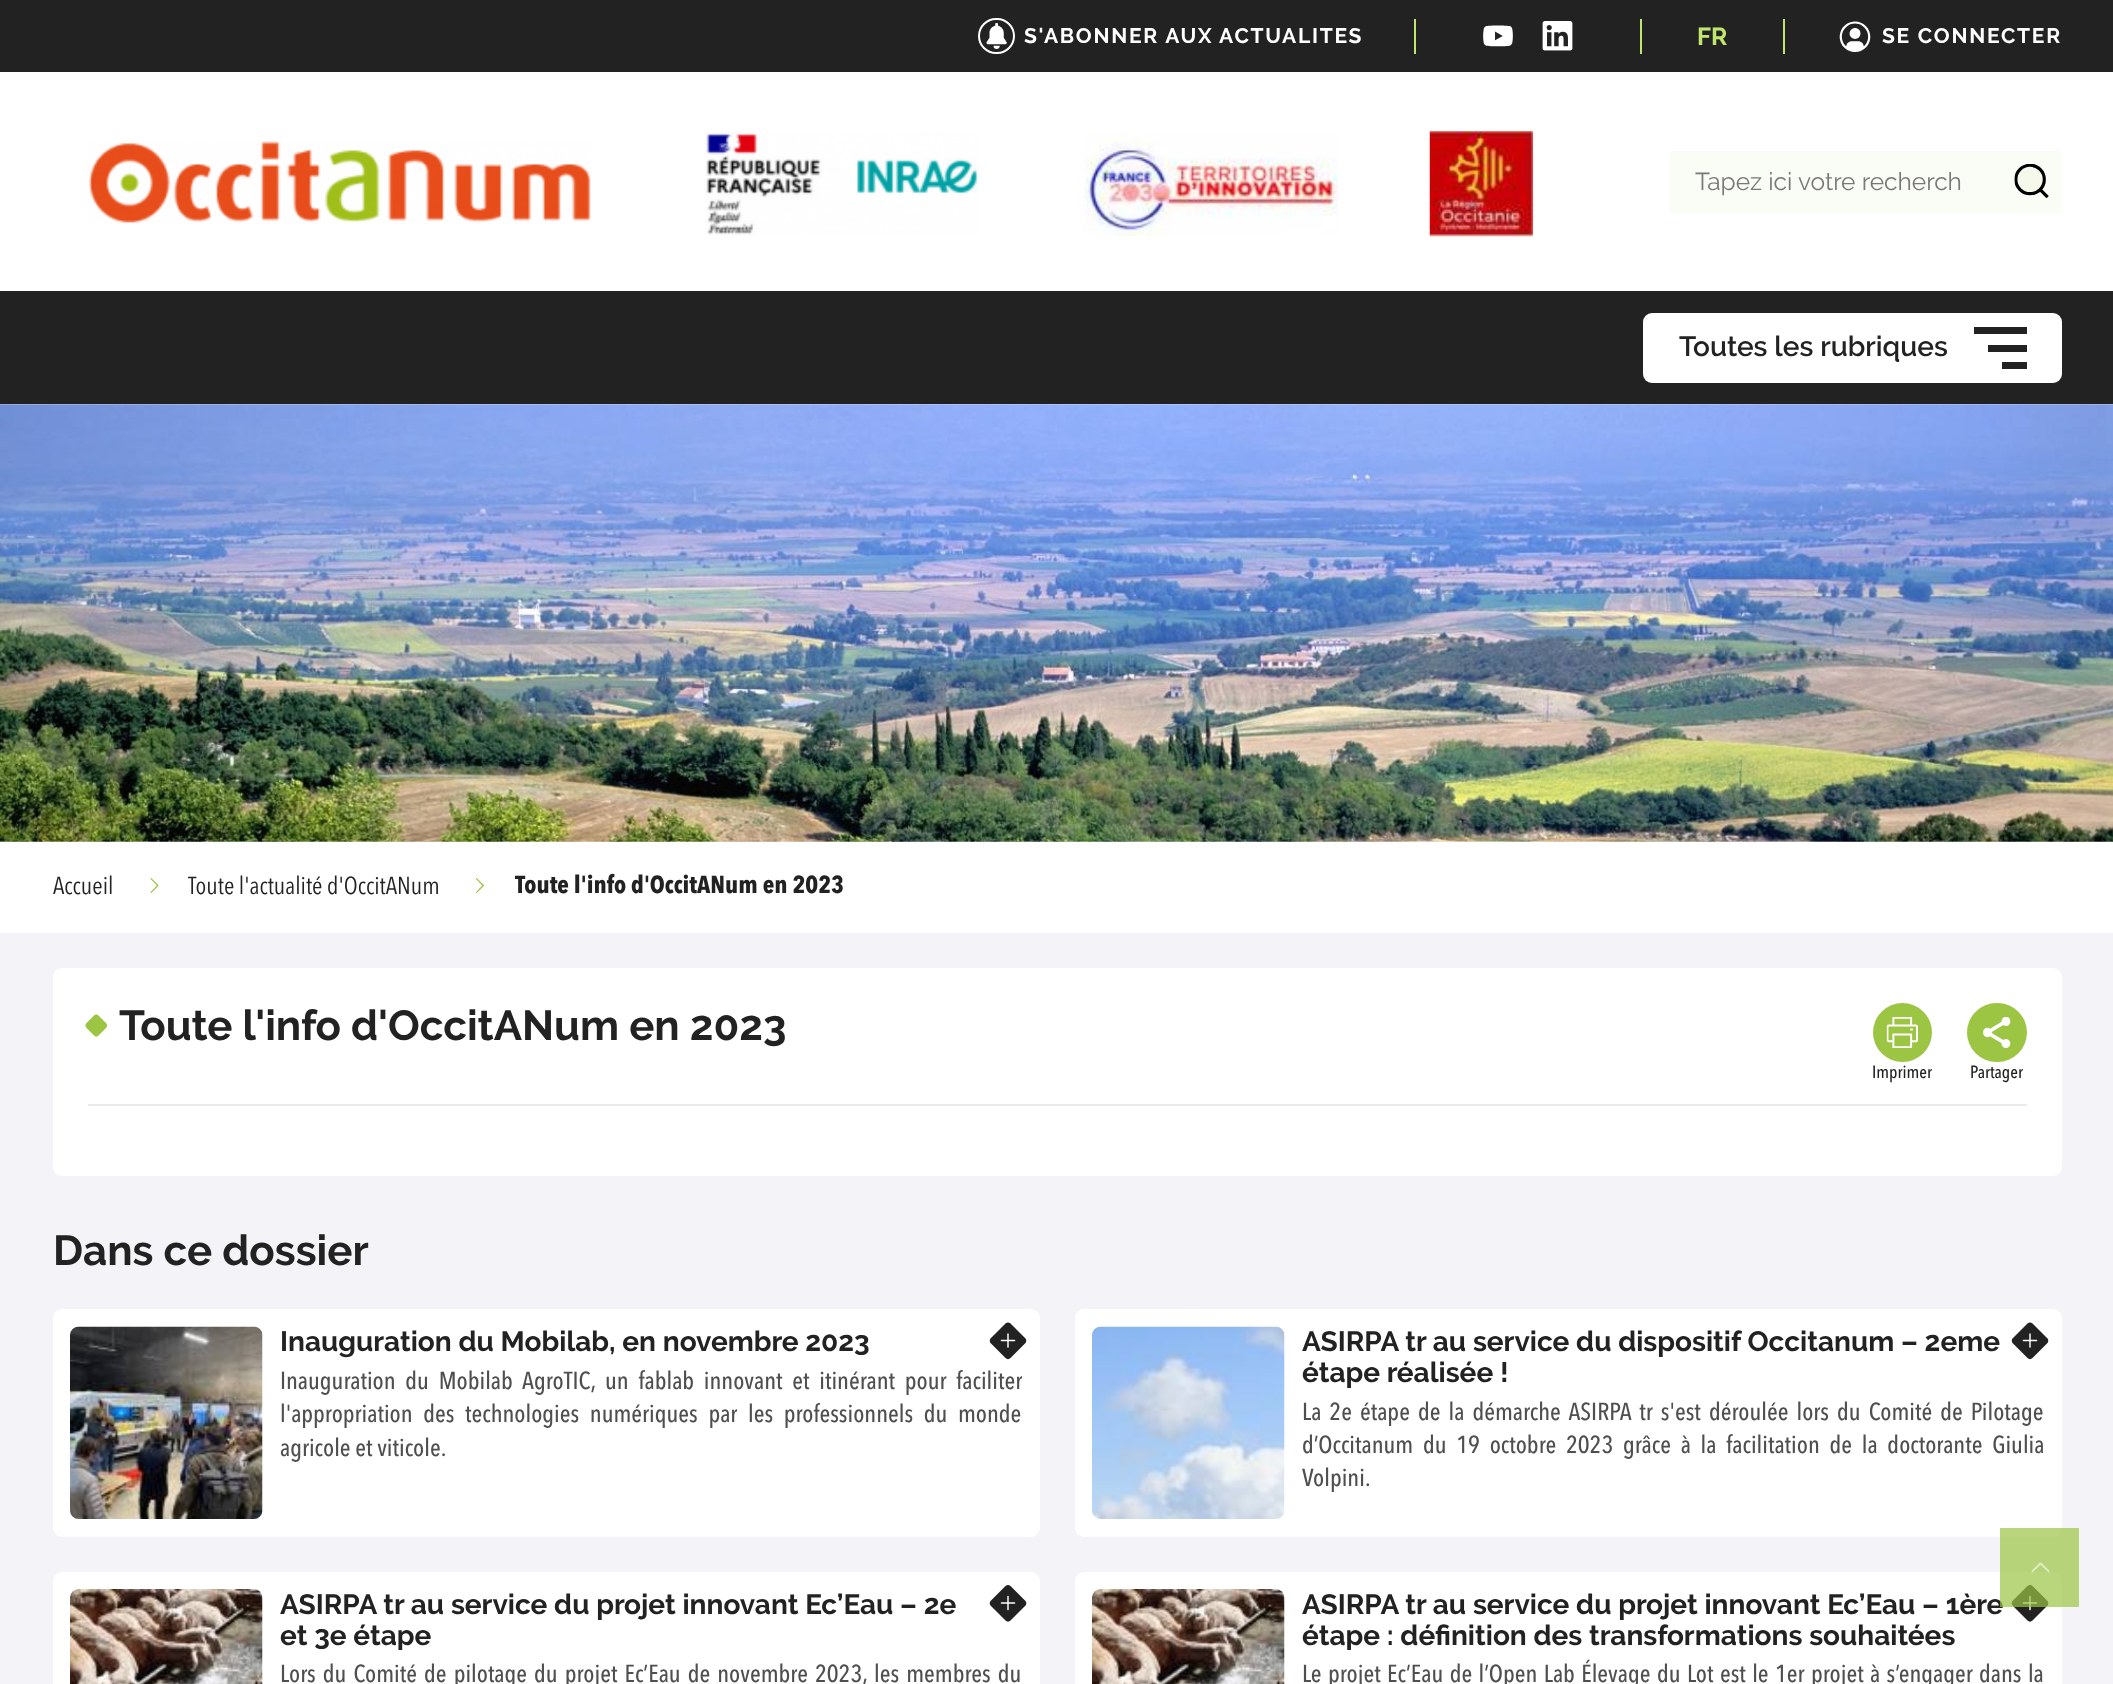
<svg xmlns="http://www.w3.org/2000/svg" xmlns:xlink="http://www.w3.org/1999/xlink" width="2113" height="1684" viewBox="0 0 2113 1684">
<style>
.cls-1{font:bold 21px Raleway;letter-spacing:1.75px;fill:#ffffff}
.cls-2{font:bold 24.5px Raleway;fill:#c1e66f}
.cls-3{font:24.5px Raleway;fill:#787977}
.cls-4{font:600 28px Raleway;fill:#222222}
.cls-5{font:24.5px Avenir Next;fill:#222222}
.cls-6{font:bold 24.5px Avenir Next;fill:#222222}
.cls-7{font:bold 42px Raleway;fill:#222222}
.cls-8{font:500 17.5px Avenir Next;fill:#222222}
.cls-9{font:bold 28px Raleway;fill:#222222}
.cls-10{font:500 24.5px Avenir Next;fill:#4f4f4f}
</style>
<defs>
<clipPath id="clip1"><rect x="280" y="1589" width="705" height="61"/></clipPath>
<clipPath id="clip2"><rect x="1302" y="1589" width="705" height="61"/></clipPath>
</defs>
<rect width="100%" height="100%" fill="#ffffff"/>
<rect fill="#222222" x="0" y="0" width="2113" height="72"/>
<rect fill="none" stroke="#ffffff" stroke-width="2" x="979" y="19" width="35" height="34" rx="17"/>
<image xlink:href="image0.png" x="986" y="23" width="21" height="26"/>
<rect fill="#c1e66f" x="1414" y="19" width="2" height="35"/>
<image xlink:href="image1.png" x="1483" y="25" width="30" height="22"/>
<image xlink:href="image2.png" x="1542" y="21" width="31" height="30"/>
<rect fill="#c1e66f" x="1640" y="19" width="2" height="35"/>
<rect fill="#c1e66f" x="1783" y="19" width="2" height="35"/>
<image xlink:href="image3.png" x="1839" y="21" width="32" height="31"/>
<image xlink:href="image4.png" x="88" y="141" width="503" height="82"/>
<image xlink:href="image5.png" x="705" y="131" width="274" height="104"/>
<image xlink:href="image6.png" x="1084" y="132" width="255" height="104"/>
<image xlink:href="image7.png" x="1429" y="131" width="104" height="106"/>
<rect fill="#fafcf6" x="1670" y="151" width="392" height="63" rx="4"/>
<image xlink:href="image8.png" x="2014" y="164" width="35" height="35"/>
<rect fill="#222222" x="0" y="291" width="2113" height="113"/>
<rect fill="#ffffff" x="1643" y="313" width="419" height="70" rx="9"/>
<rect fill="#222222" x="1974" y="327" width="53" height="7"/>
<rect fill="#222222" x="1988" y="345" width="39" height="7"/>
<rect fill="#222222" x="2002" y="362" width="25" height="7"/>
<image xlink:href="image9.png" x="0" y="404" width="2113" height="438"/>
<image xlink:href="image10.png" x="150" y="878" width="9" height="15"/>
<image xlink:href="image11.png" x="476" y="878" width="8" height="15"/>
<rect fill="#f3f3f8" x="0" y="933" width="2113" height="751"/>
<rect fill="#ffffff" x="53" y="968" width="2009" height="208" rx="9"/>
<rect fill="#eaeaea" x="88" y="1104" width="1939" height="2"/>
<path fill="#9dc544" d="M98.5 1015.5L106 1023C107.5 1024.5 107.5 1026.5 106 1028L98.5 1035.5C97.5 1037 95 1037 94 1035.5L86.5 1028C85 1026.5 85 1024.5 86.5 1023L94 1015.5C95 1014 97.5 1014 98.5 1015.5Z"/>
<circle fill="#9dc544" cx="1902.5" cy="1032.5" r="29.5"/>
<image xlink:href="image12.png" x="1886" y="1017" width="32" height="31"/>
<rect fill="#9dc544" x="1967" y="1003" width="60" height="59" rx="29.5"/>
<image xlink:href="image13.png" x="1983" y="1017" width="28" height="31"/>
<rect fill="#ffffff" x="53" y="1309" width="987" height="228" rx="9"/>
<image xlink:href="image14.png" x="70" y="1326" width="193" height="193"/>
<path fill="#222222" d="M1010.5 1323.5L1025.5 1338.5C1026.5 1339.5 1026.5 1342 1025.5 1343L1010.5 1358C1009 1359.5 1007 1359.5 1005.5 1358L990.5 1343C989.5 1342 989.5 1339.5 990.5 1338.5L1005.5 1323.5C1007 1322 1009 1322 1010.5 1323.5Z"/>
<image xlink:href="image15.png" x="1000" y="1333" width="16" height="15"/>
<rect fill="#ffffff" x="1075" y="1309" width="987" height="228" rx="9"/>
<image xlink:href="image16.png" x="1092" y="1326" width="193" height="193"/>
<path fill="#222222" d="M2032.5 1323.5L2047.5 1338.5C2048.5 1339.5 2048.5 1342 2047.5 1343L2032.5 1358C2031 1359.5 2029 1359.5 2027.5 1358L2012.5 1343C2011.5 1342 2011.5 1339.5 2012.5 1338.5L2027.5 1323.5C2029 1322 2031 1322 2032.5 1323.5Z"/>
<image xlink:href="image15.png" x="2022" y="1333" width="16" height="15"/>
<rect fill="#ffffff" x="53" y="1572" width="987" height="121" rx="9"/>
<image xlink:href="image17.png" x="70" y="1589" width="193" height="95"/>
<path fill="#222222" d="M1010.5 1586L1025.5 1601C1026.5 1602 1026.5 1604.5 1025.5 1605.5L1010.5 1620.5C1009 1622 1007 1622 1005.5 1620.5L990.5 1605.5C989.5 1604.5 989.5 1602 990.5 1601L1005.5 1586C1007 1584.5 1009 1584.5 1010.5 1586Z"/>
<image xlink:href="image18.png" x="1000" y="1595" width="16" height="16"/>
<rect fill="#ffffff" x="1075" y="1572" width="987" height="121" rx="9"/>
<image xlink:href="image19.png" x="1092" y="1589" width="193" height="95"/>
<path fill="#222222" d="M2032.5 1586L2047.5 1601C2048.5 1602 2048.5 1604.5 2047.5 1605.5L2032.5 1620.5C2031 1622 2029 1622 2027.5 1620.5L2012.5 1605.5C2011.5 1604.5 2011.5 1602 2012.5 1601L2027.5 1586C2029 1584.5 2031 1584.5 2032.5 1586Z"/>
<image xlink:href="image18.png" x="2022" y="1595" width="16" height="16"/>
<text class="cls-1" x="1024" y="43">S'ABONNER AUX ACTUALITES</text>
<text class="cls-2" x="1697" y="45">FR</text>
<text class="cls-1" x="1882" y="43">SE CONNECTER</text>
<text class="cls-3" x="1695" y="190">Tapez ici votre recherch</text>
<text class="cls-4" x="1679" y="356">Toutes les rubriques</text>
<text class="cls-5" x="53" y="894">Accueil</text>
<text class="cls-5" x="188" y="894">Toute l'actualité d'OccitANum</text>
<text class="cls-6" x="515" y="893">Toute l'info d'OccitANum en 2023</text>
<text class="cls-7" x="119" y="1040">Toute l'info d'OccitANum en 2023</text>
<text class="cls-8" x="1872" y="1078">Imprimer</text>
<text class="cls-8" x="1970" y="1078">Partager</text>
<text class="cls-7" x="53" y="1265">Dans ce dossier</text>
<text class="cls-9" x="280" y="1351">Inauguration du Mobilab, en novembre 2023</text>
<text class="cls-10" x="280" y="1389" word-spacing="5.1">Inauguration du Mobilab AgroTIC,</text>
<text class="cls-10" x="605" y="1389" word-spacing="5.1">un fablab innovant et itinérant pour faciliter</text>
<text class="cls-10"><tspan x="280" y="1422" word-spacing="6">l'appropriation des technologies numériques par les professionnels du monde</tspan><tspan x="280" y="1456">agricole et viticole.</tspan></text>
<text class="cls-9"><tspan x="1302" y="1351">ASIRPA tr au service du dispositif Occitanum – 2eme</tspan><tspan x="1302" y="1382">étape réalisée !</tspan></text>
<text class="cls-10"><tspan x="1302" y="1420" word-spacing="3.4">La 2e étape de la démarche ASIRPA tr s'est déroulée lors du Comité de Pilotage</tspan><tspan x="1302" y="1453" word-spacing="5.1">d’Occitanum du 19 octobre 2023 grâce à la facilitation de la doctorante Giulia</tspan><tspan x="1302" y="1486">Volpini.</tspan></text>
<text class="cls-9" x="280" y="1614">ASIRPA tr au service du projet innovant Ec’Eau – 2e</text>
<g clip-path="url(#clip1)">
<text class="cls-9" x="280" y="1645">et 3e étape</text>
</g>
<text class="cls-10" x="280" y="1682" word-spacing="2.4">Lors du Comité de pilotage du projet Ec’Eau de novembre 2023, les membres du</text>
<text class="cls-9" x="1302" y="1614">ASIRPA tr au service du projet innovant Ec’Eau – 1ère</text>
<g clip-path="url(#clip2)">
<text class="cls-9" x="1302" y="1645">étape : définition des transformations souhaitées</text>
</g>
<text class="cls-10" x="1302" y="1682" word-spacing="1.75">Le projet Ec’Eau de l’Open Lab Élevage du Lot est le 1er projet à s’engager dans la</text>
<rect fill="#9dc544" fill-opacity="0.7" x="2000" y="1528" width="79" height="79"/>
<image xlink:href="image20.png" x="2031" y="1562" width="19" height="11"/>
</svg>
